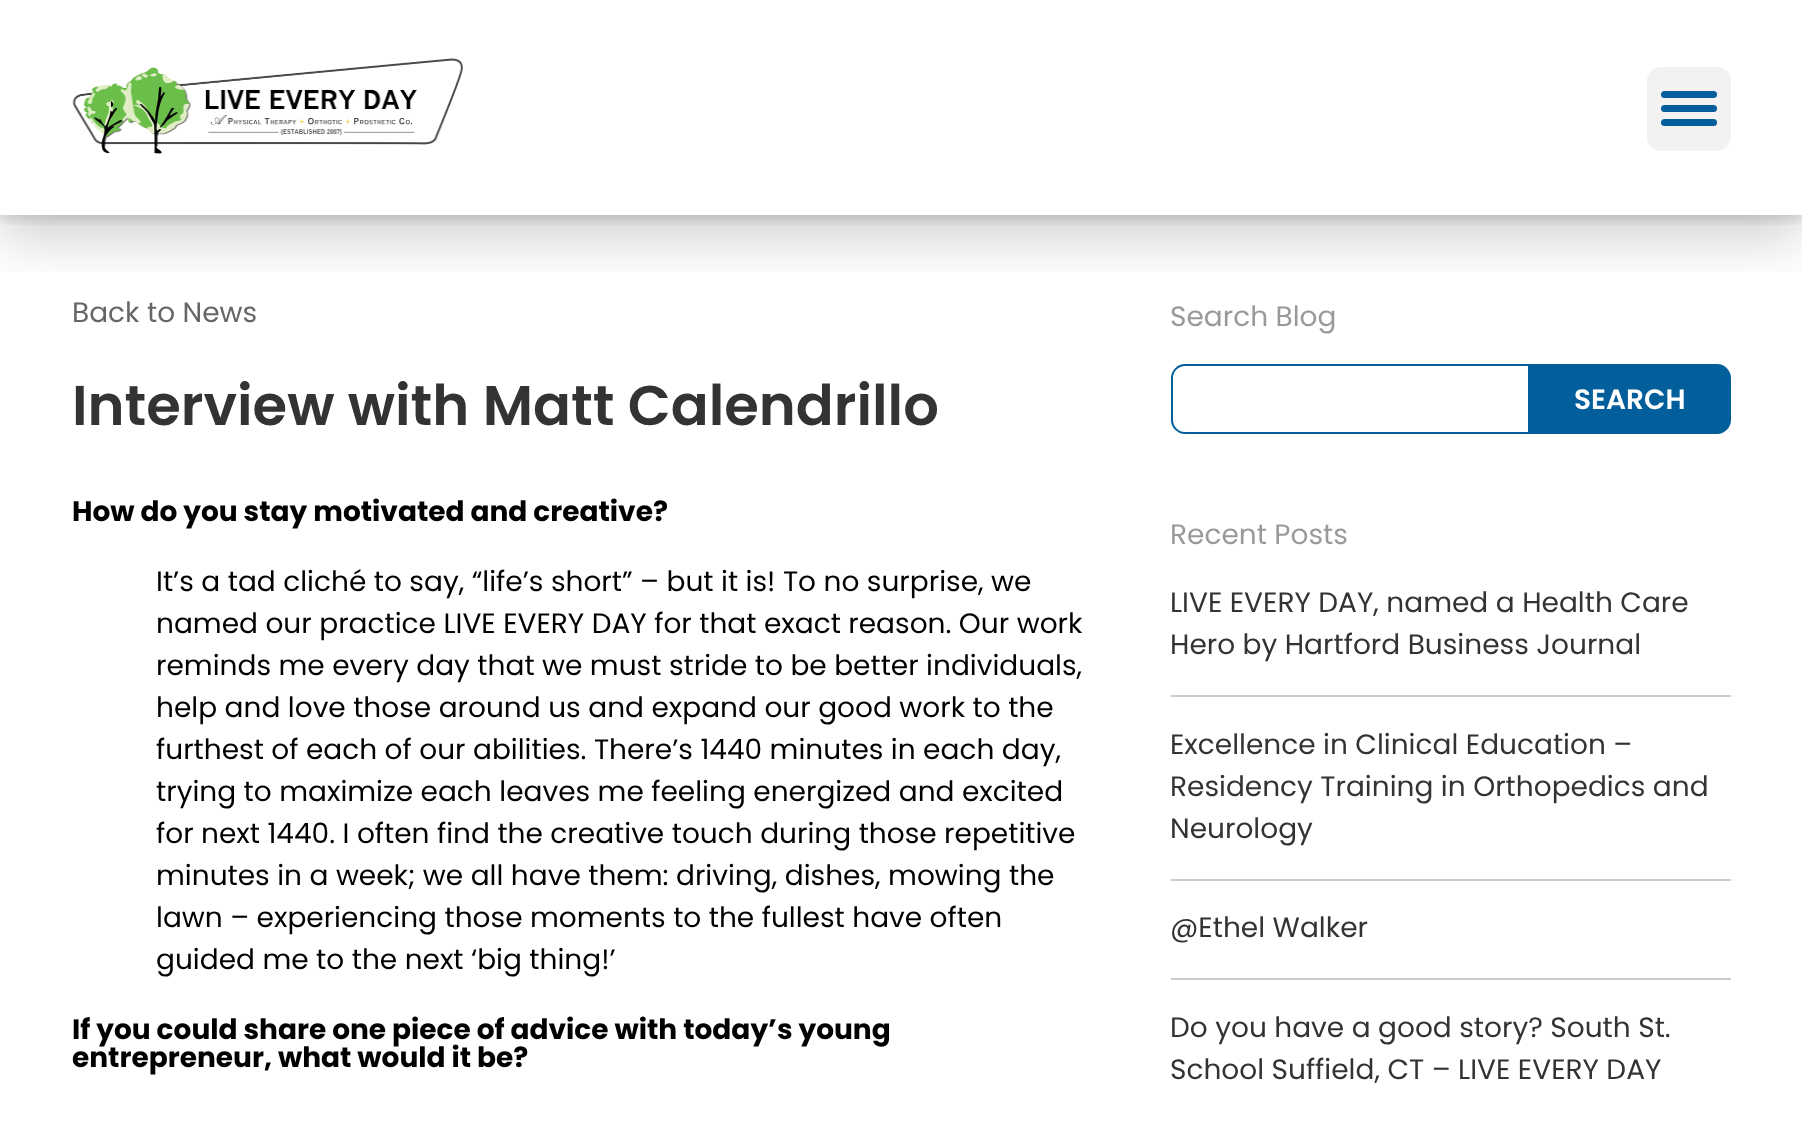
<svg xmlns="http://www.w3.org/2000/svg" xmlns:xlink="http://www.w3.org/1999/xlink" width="1802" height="1122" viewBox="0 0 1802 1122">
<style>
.cls-1{font:28px Poppins;fill:#666666}
.cls-2{font:600 56px Poppins;fill:#333333}
.cls-3{font:bold 28px Poppins;fill:#000000}
.cls-4{font:28px Poppins;fill:#000000}
.cls-5{font:28px Poppins;fill:#999999}
.cls-6{font:600 28px Poppins;fill:#ffffff}
.cls-7{font:28px Poppins;fill:#333333}
</style>
<defs>
<clipPath id="clip1"><rect x="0" y="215" width="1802" height="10"/></clipPath>
<clipPath id="clip2"><rect x="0" y="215" width="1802" height="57"/></clipPath>
</defs>
<rect width="100%" height="100%" fill="#ffffff"/>
<g clip-path="url(#clip1)">
<rect fill="#000000" fill-opacity="0.1" filter="blur(5px)" x="0" y="5" width="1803" height="216"/>
</g>
<g clip-path="url(#clip2)">
<rect fill="#000000" fill-opacity="0.2" filter="blur(28px)" x="0" y="21" width="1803" height="215"/>
</g>
<image xlink:href="image0.png" x="72" y="58" width="391" height="96"/>
<rect fill="#f2f2f2" x="1647" y="67" width="84" height="84" rx="14"/>
<rect fill="#025f9c" x="1661" y="91" width="56" height="7" rx="3.5"/>
<rect fill="#025f9c" x="1661" y="105" width="56" height="7" rx="3.5"/>
<rect fill="#025f9c" x="1661" y="119" width="56" height="7" rx="3.5"/>
<path fill="none" stroke="#025f9c" stroke-width="2" d="M1185 365H1529V433H1185C1178 433 1172 427 1172 420V378C1172 371 1178 365 1185 365Z"/>
<path fill="#025f9c" stroke="#025f9c" stroke-width="2" d="M1531 365H1717C1724 365 1730 371 1730 378V420C1730 427 1724 433 1717 433H1531Z"/>
<rect fill="#cccccc" x="1171" y="695" width="560" height="2"/>
<rect fill="#cccccc" x="1171" y="879" width="560" height="2"/>
<rect fill="#cccccc" x="1171" y="978" width="560" height="2"/>
<text class="cls-1" x="72" y="322">Back to News</text>
<text class="cls-2" x="72" y="425">Interview with Matt Calendrillo</text>
<text class="cls-3" x="72" y="521">How do you stay motivated and creative?</text>
<text class="cls-4"><tspan x="156" y="591">It’s a tad cliché to say, “life’s short” – but it is! To no surprise, we</tspan><tspan x="156" y="633">named our practice LIVE EVERY DAY for that exact reason. Our work</tspan><tspan x="156" y="675">reminds me every day that we must stride to be better individuals,</tspan><tspan x="156" y="717">help and love those around us and expand our good work to the</tspan><tspan x="156" y="759">furthest of each of our abilities. There’s 1440 minutes in each day,</tspan><tspan x="156" y="801">trying to maximize each leaves me feeling energized and excited</tspan><tspan x="156" y="843">for next 1440. I often find the creative touch during those repetitive</tspan><tspan x="156" y="885">minutes in a week; we all have them: driving, dishes, mowing the</tspan><tspan x="156" y="927">lawn – experiencing those moments to the fullest have often</tspan><tspan x="156" y="969">guided me to the next ‘big thing!’</tspan></text>
<text class="cls-3"><tspan x="72" y="1039">If you could share one piece of advice with today’s young</tspan><tspan x="72" y="1067">entrepreneur, what would it be?</tspan></text>
<text class="cls-5" x="1170" y="326">Search Blog</text>
<text class="cls-6" x="1574" y="409">SEARCH</text>
<text class="cls-5" x="1170" y="544">Recent Posts</text>
<text class="cls-7"><tspan x="1170" y="612">LIVE EVERY DAY, named a Health Care</tspan><tspan x="1170" y="654">Hero by Hartford Business Journal</tspan></text>
<text class="cls-7"><tspan x="1170" y="754">Excellence in Clinical Education –</tspan><tspan x="1170" y="796">Residency Training in Orthopedics and</tspan><tspan x="1170" y="838">Neurology</tspan></text>
<text class="cls-7" x="1170" y="937">@Ethel Walker</text>
<text class="cls-7"><tspan x="1170" y="1037">Do you have a good story? South St.</tspan><tspan x="1170" y="1079">School Suffield, CT – LIVE EVERY DAY</tspan></text>
</svg>
